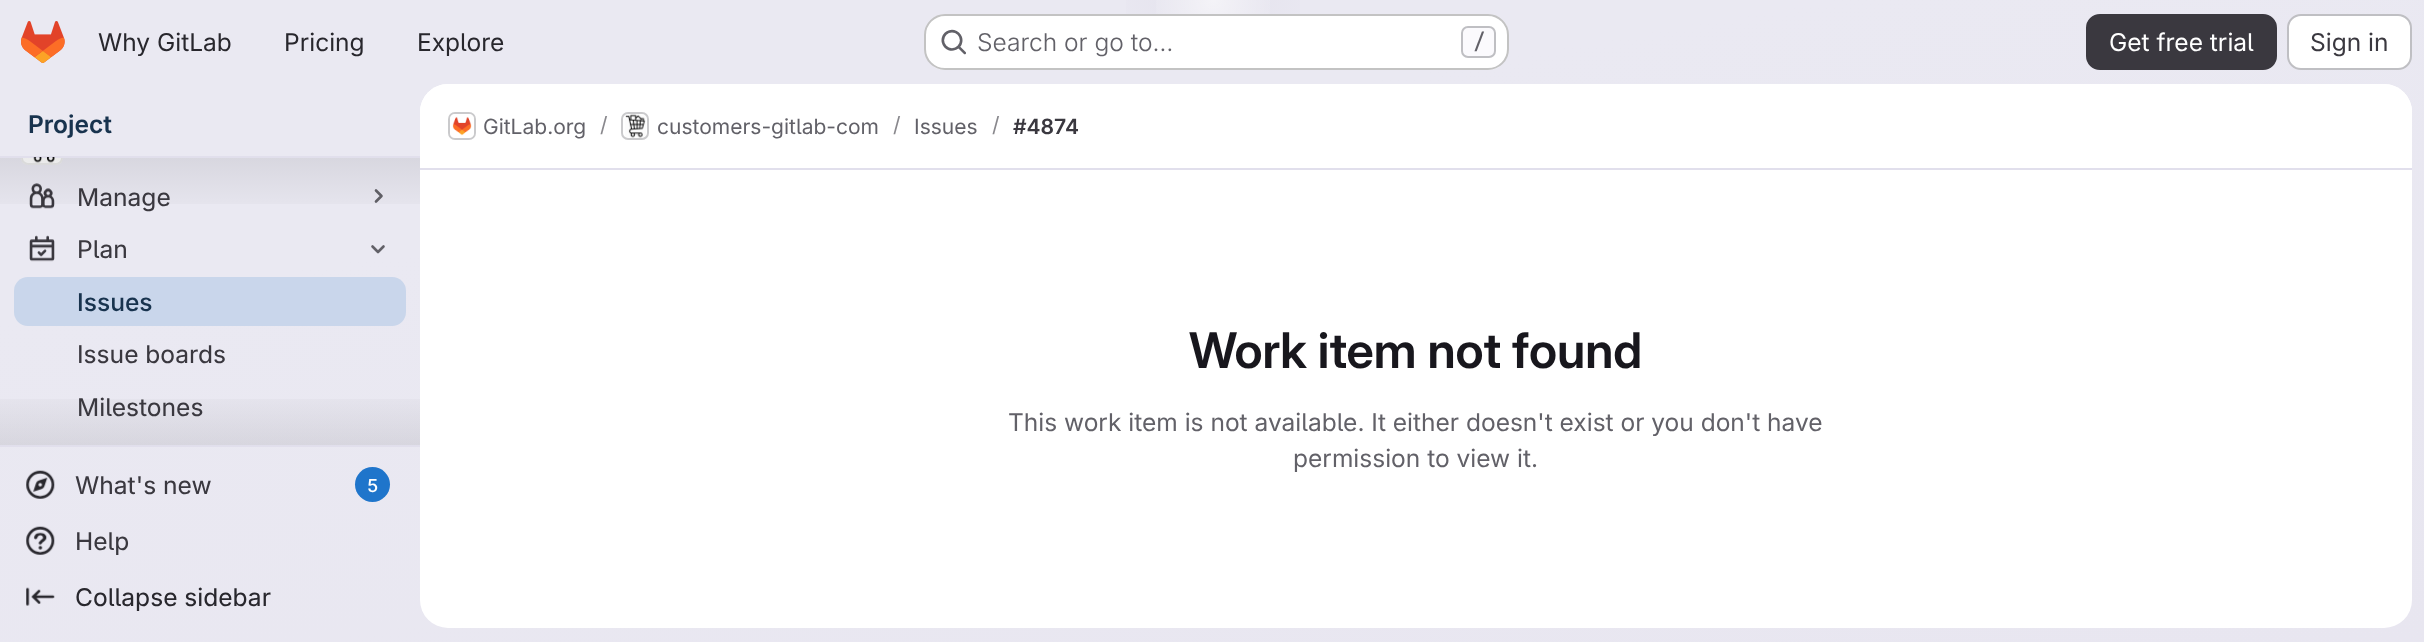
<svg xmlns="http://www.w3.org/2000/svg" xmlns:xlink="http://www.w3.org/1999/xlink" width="2424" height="642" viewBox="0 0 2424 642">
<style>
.cls-1{font:24.5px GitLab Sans;fill:#28272d}
.cls-2{font:300 24.5px GitLab Sans;fill:#626168}
.cls-3{font:500 21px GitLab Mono;fill:#626168}
.cls-4{font:24.5px GitLab Sans;fill:#ffffff}
.cls-5{font:24.5px GitLab Sans;fill:#3a383f}
.cls-6{font:600 24.5px 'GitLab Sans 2';fill:#18334e}
.cls-7{font:24.5px 'GitLab Sans 2';fill:#3a383f}
.cls-8{font:500 24.5px GitLab Sans;fill:#18334e}
.cls-9{font:500 18px GitLab Sans;fill:#ffffff}
.cls-10{font:24.5px 'GitLab Sans 2';fill:#28272d}
.cls-11{font:21px GitLab Sans;fill:#626168}
.cls-12{font:21px GitLab Sans;fill:#89888d}
.cls-13{font:600 21px 'GitLab Sans 2';fill:#3a383f}
.cls-14{font:600 49px GitLab Sans;fill:#18171d}
.cls-15{font:24.5px GitLab Sans;fill:#626168}
</style>
<defs>
<linearGradient id="g1" gradientUnits="userSpaceOnUse" x1="1304" y1="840" x2="1121" y2="-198"><stop offset="0" stop-color="#e8e6f0"/><stop offset="0.7" stop-color="#eae9f2"/></linearGradient>
<radialGradient id="g2" gradientUnits="userSpaceOnUse" cx="0" cy="0" r="1" gradientTransform="matrix(1213 0 0 642 1213 0)"><stop offset="0" stop-color="#e4e2ed"/><stop offset="0.1" stop-color="#e4e2ed" stop-opacity="0"/></radialGradient>
<radialGradient id="g3" gradientUnits="userSpaceOnUse" cx="1213" cy="0" r="1372"><stop offset="0" stop-color="#ffffff" stop-opacity="0.6"/><stop offset="0.05" stop-color="#ffffff" stop-opacity="0"/></radialGradient>
<linearGradient id="g4" gradientUnits="userSpaceOnUse" x1="210" y1="382" x2="210" y2="445"><stop offset="0" stop-color="#050506" stop-opacity="0"/><stop offset="1" stop-color="#050506" stop-opacity="0.08"/></linearGradient>
<clipPath id="clip1"><rect x="0" y="158" width="420" height="287"/></clipPath>
<linearGradient id="g5" gradientUnits="userSpaceOnUse" x1="210" y1="157" x2="210" y2="221"><stop offset="0" stop-color="#050506" stop-opacity="0.08"/><stop offset="1" stop-color="#050506" stop-opacity="0"/></linearGradient>
</defs>
<rect width="100%" height="100%" fill="#ffffff"/>
<rect fill="url(#g1)" x="0" y="0" width="2424" height="642"/>
<rect fill="url(#g2)" x="1126" y="0" width="174" height="14"/>
<rect fill="url(#g3)" x="1156" y="0" width="114" height="14"/>
<image xlink:href="image0.png" x="21" y="21" width="44" height="42"/>
<rect fill="#ffffff" x="924" y="14" width="585" height="56" rx="21"/>
<rect fill="none" stroke="#050506" stroke-opacity="0.24" stroke-width="2" x="925" y="15" width="583" height="54" rx="20"/>
<image xlink:href="image1.png" x="941" y="29" width="25" height="26"/>
<rect fill="#fbfafd" stroke="#bfbfc3" stroke-width="2" x="1462" y="27" width="33" height="30" rx="6"/>
<rect fill="#3a383f" stroke="#3a383f" stroke-width="2" x="2087" y="15" width="189" height="54" rx="13"/>
<rect fill="#ffffff" stroke="#bfbfc3" stroke-width="2" x="2288" y="15" width="123" height="54" rx="13"/>
<rect fill="#e1dfec" x="0" y="156" width="420" height="2"/>
<rect fill="#e1dfec" x="0" y="445" width="420" height="2"/>
<path fill="#ffffff" d="M21 158H63C63 162 60 165 56 165H28C24 165 21 162 21 158Z"/>
<image xlink:href="image2.png" x="33" y="157" width="22" height="6"/>
<image xlink:href="image3.png" x="29" y="183" width="26" height="26"/>
<path fill="none" stroke="#626168" stroke-width="2.6" stroke-linecap="round" stroke-linejoin="round" d="M376 190.5L381.5 196L376 201.5"/>
<image xlink:href="image4.png" x="29" y="235" width="26" height="27"/>
<path fill="none" stroke="#626168" stroke-width="2.6" stroke-linecap="round" stroke-linejoin="round" d="M383.5 246.5L378 252L372.5 246.5"/>
<rect fill="#c9d6eb" x="14" y="277" width="392" height="49" rx="14"/>
<rect fill="url(#g4)" x="0" y="399" width="420" height="46"/>
<image xlink:href="image5.png" x="26" y="470" width="29" height="29"/>
<circle fill="#1f75cb" cx="372.5" cy="484.5" r="17.5"/>
<image xlink:href="image6.png" x="26" y="526" width="29" height="29"/>
<image xlink:href="image7.png" x="26" y="587" width="29" height="19"/>
<rect fill="#ffffff" x="420" y="84" width="1992" height="544" rx="28"/>
<path fill="#ffffff" d="M448 84H2384C2399.5 84 2412 96.5 2412 112V170H420V112C420 96.5 432.5 84 448 84Z"/>
<rect fill="#e1dfec" x="420" y="168" width="1992" height="2"/>
<rect fill="none" stroke="#dcdcde" stroke-width="2" x="449" y="113" width="26" height="26" rx="6"/>
<image xlink:href="image8.png" x="450" y="114" width="24" height="24"/>
<rect fill="none" stroke="#050506" stroke-opacity="0.08" stroke-width="2" x="449" y="113" width="26" height="26" rx="6"/>
<rect fill="none" stroke="#dcdcde" stroke-width="2" x="622" y="113" width="26" height="26" rx="6"/>
<image xlink:href="image9.png" x="625" y="114" width="21" height="24"/>
<rect fill="none" stroke="#050506" stroke-opacity="0.08" stroke-width="2" x="622" y="113" width="26" height="26" rx="6"/>
<text class="cls-1" x="98" y="51">Why GitLab</text>
<text class="cls-1" x="284" y="51">Pricing</text>
<text class="cls-1" x="417" y="51">Explore</text>
<text class="cls-2" x="977" y="51">Search or go to…</text>
<text class="cls-3" x="1473" y="49">/</text>
<text class="cls-4" x="2109" y="51">Get free trial</text>
<text class="cls-5" x="2310" y="51">Sign in</text>
<text class="cls-6" x="28" y="133">Project</text>
<g clip-path="url(#clip1)">
<rect fill="none" stroke="#050506" stroke-opacity="0.08" stroke-width="2" x="22" y="124" width="40" height="40" rx="6"/>
</g>
<rect fill="url(#g5)" x="0" y="158" width="420" height="46"/>
<text class="cls-7" x="77" y="206">Manage</text>
<text class="cls-7" x="77" y="258">Plan</text>
<text class="cls-8" x="77" y="311">Issues</text>
<text class="cls-7" x="77" y="363">Issue boards</text>
<text class="cls-7" x="77" y="416">Milestones</text>
<text class="cls-7" x="75" y="494">What's new</text>
<text class="cls-9" x="367" y="492">5</text>
<text class="cls-7" x="75" y="550">Help</text>
<text class="cls-10" x="75" y="606">Collapse sidebar</text>
<text class="cls-11" x="483" y="134">GitLab.org</text>
<text class="cls-12" x="600" y="132">/</text>
<text class="cls-11" x="657" y="134">customers-gitlab-com</text>
<text class="cls-12" x="893" y="132">/</text>
<text class="cls-11" x="914" y="134">Issues</text>
<text class="cls-12" x="992" y="132">/</text>
<text class="cls-13" x="1013" y="134">#4874</text>
<text class="cls-14" x="1189" y="368">Work item not found</text>
<text class="cls-15" x="1008" y="431">This work item is not available. It either doesn't exist or you don't have</text>
<text class="cls-15" x="1293" y="467">permission to view it.</text>
</svg>
